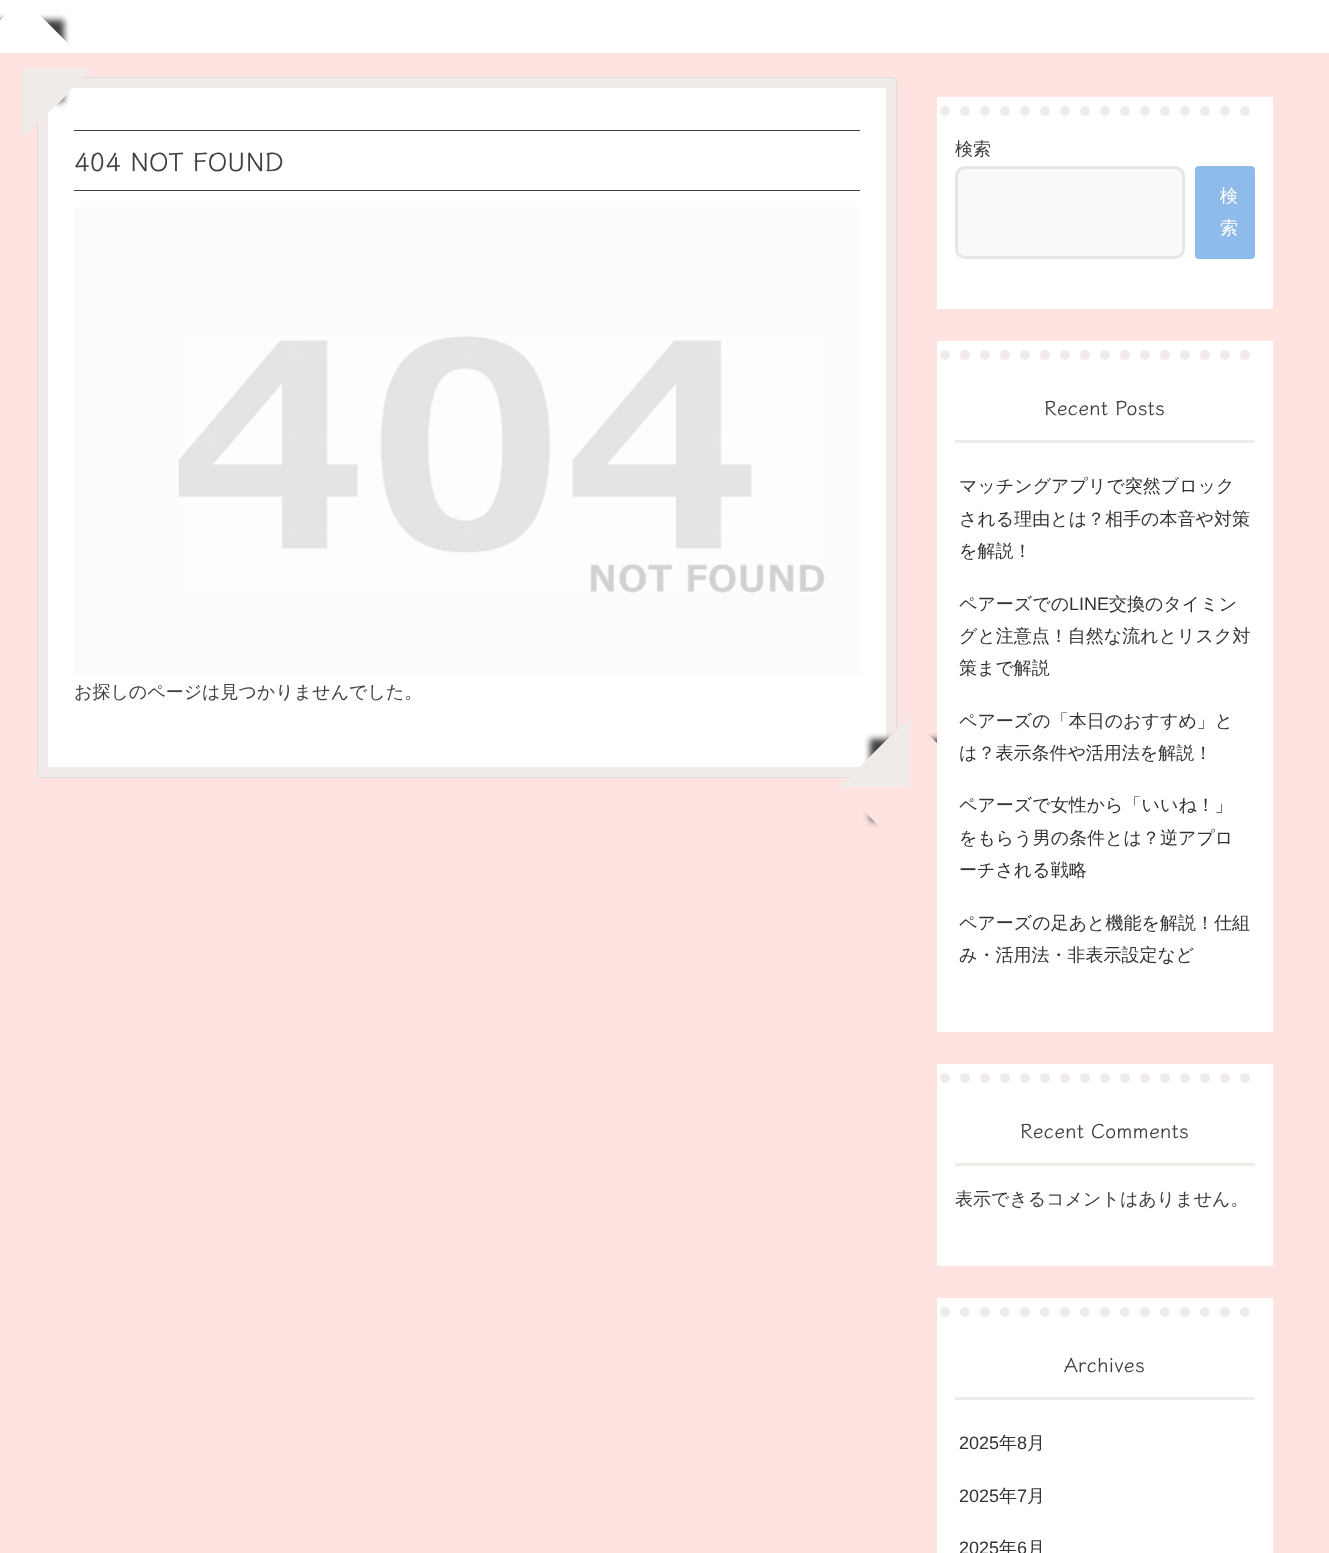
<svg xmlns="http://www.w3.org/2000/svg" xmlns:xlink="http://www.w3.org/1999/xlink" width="1329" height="1553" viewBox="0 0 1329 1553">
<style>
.cls-1{font:600 26px Klee One;fill:#41403e}
.cls-2{font:500 18px WenQuanYi Zen Hei;fill:#41403e}
.cls-3{font:500 18px WenQuanYi Zen Hei;fill:#ffffff}
.cls-4{font:600 20px Klee One;fill:#41403e}
.cls-5{font:500 18px WenQuanYi Zen Hei;fill:#333333}
.cls-6{font:18px Liberation Sans;fill:#333333}
</style>
<defs>
<clipPath id="clip1"><path d="M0 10H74V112H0ZM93 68.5L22.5 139L-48 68.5L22.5-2.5Z" clip-rule="evenodd"/></clipPath>
<clipPath id="clip2"><path d="M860 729H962V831H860ZM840 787L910.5 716.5L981 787L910.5 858Z" clip-rule="evenodd"/></clipPath>
</defs>
<rect width="100%" height="100%" fill="#fee3e1"/>
<rect fill="#ffffff" x="0" y="0" width="1329" height="53"/>
<rect fill="#ffffff" x="37" y="77" width="860" height="701" rx="4"/>
<path fill="none" stroke="#f0ebe8" stroke-width="10" d="M43 83H891V772H43Z"/>
<rect fill="none" stroke="#dddddd" x="37.5" y="77.5" width="859" height="700" rx="3.5"/>
<g clip-path="url(#clip1)">
<rect fill="#41403e" filter="blur(3px)" x="-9" y="20" width="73" height="82"/>
</g>
<rect fill="#41403e" x="74" y="130" width="786" height="1"/>
<path fill="#f0ebe8" d="M93 68L22 139V68Z"/>
<rect fill="#41403e" x="74" y="190" width="786" height="1"/>
<rect fill="#fbfbfb" x="74" y="207" width="786" height="469"/>
<image xlink:href="image0.png" x="178" y="336" width="647" height="257"/>
<g clip-path="url(#clip2)">
<rect fill="#41403e" filter="blur(3px)" x="870" y="739" width="82" height="82"/>
</g>
<path fill="#f0ebe8" d="M840 787L910 716V787Z"/>
<rect fill="#ffffff" x="937" y="97" width="336" height="212"/>
<path fill="none" stroke="#f0ebe8" stroke-width="10" stroke-linecap="round" stroke-dasharray="0 20" d="M945 111H1264"/>
<rect fill="#fbf9f8" x="955" y="166" width="230" height="93" rx="10"/>
<rect fill="none" stroke="#dddddd" stroke-opacity="0.7" stroke-width="3" x="956.5" y="167.5" width="227" height="90" rx="8.5"/>
<rect fill="#8fbbea" x="1195" y="166" width="60" height="93" rx="4"/>
<rect fill="#ffffff" x="937" y="341" width="336" height="691"/>
<path fill="none" stroke="#f0ebe8" stroke-width="10" stroke-linecap="round" stroke-dasharray="0 20" d="M945 355H1264"/>
<rect fill="#f0ebe8" x="955" y="440" width="300" height="3"/>
<rect fill="#ffffff" x="937" y="1064" width="336" height="202"/>
<path fill="none" stroke="#f0ebe8" stroke-width="10" stroke-linecap="round" stroke-dasharray="0 20" d="M945 1078H1264"/>
<rect fill="#f0ebe8" x="955" y="1163" width="300" height="3"/>
<rect fill="#ffffff" x="937" y="1298" width="336" height="255"/>
<path fill="none" stroke="#f0ebe8" stroke-width="10" stroke-linecap="round" stroke-dasharray="0 20" d="M945 1312H1264"/>
<rect fill="#f0ebe8" x="955" y="1397" width="300" height="3"/>
<text class="cls-1" x="74" y="171">404 NOT FOUND</text>
<text class="cls-2" x="74" y="698">お探しのページは見つかりませんでした。</text>
<text class="cls-2" x="955" y="155">検索</text>
<text class="cls-3"><tspan x="1220" y="202">検</tspan><tspan x="1220" y="234">索</tspan></text>
<text class="cls-4" x="1044" y="415">Recent Posts</text>
<text class="cls-5"><tspan x="959" y="492">マッチングアプリで突然ブロック</tspan><tspan x="959" y="525">される理由とは？相手の本音や対策</tspan><tspan x="959" y="557">を解説！</tspan></text>
<text class="cls-5" x="959" y="610">ペアーズでの</text>
<text class="cls-6" x="1069" y="610">LINE</text>
<text class="cls-5" x="1109" y="610">交換のタイミン</text>
<text class="cls-5"><tspan x="959" y="642">グと注意点！自然な流れとリスク対</tspan><tspan x="959" y="674">策まで解説</tspan></text>
<text class="cls-5"><tspan x="959" y="727">ペアーズの「本日のおすすめ」と</tspan><tspan x="959" y="759">は？表示条件や活用法を解説！</tspan></text>
<text class="cls-5"><tspan x="959" y="811">ペアーズで女性から「いいね！」</tspan><tspan x="959" y="844">をもらう男の条件とは？逆アプロ</tspan><tspan x="959" y="876">ーチされる戦略</tspan></text>
<text class="cls-5"><tspan x="959" y="929">ペアーズの足あと機能を解説！仕組</tspan><tspan x="959" y="961">み・活用法・非表示設定など</tspan></text>
<text class="cls-4" x="1020" y="1138">Recent Comments</text>
<text class="cls-2" x="955" y="1205">表示できるコメントはありません。</text>
<text class="cls-4" x="1064" y="1372">Archives</text>
<text class="cls-6" x="959" y="1449">2025</text>
<text class="cls-5" x="999" y="1449">年</text>
<text class="cls-6" x="1017" y="1449">8</text>
<text class="cls-5" x="1027" y="1449">月</text>
<text class="cls-6" x="959" y="1502">2025</text>
<text class="cls-5" x="999" y="1502">年</text>
<text class="cls-6" x="1017" y="1502">7</text>
<text class="cls-5" x="1027" y="1502">月</text>
<text class="cls-6" x="959" y="1554">2025</text>
<text class="cls-5" x="999" y="1554">年</text>
<text class="cls-6" x="1017" y="1554">6</text>
<text class="cls-5" x="1027" y="1554">月</text>
</svg>
